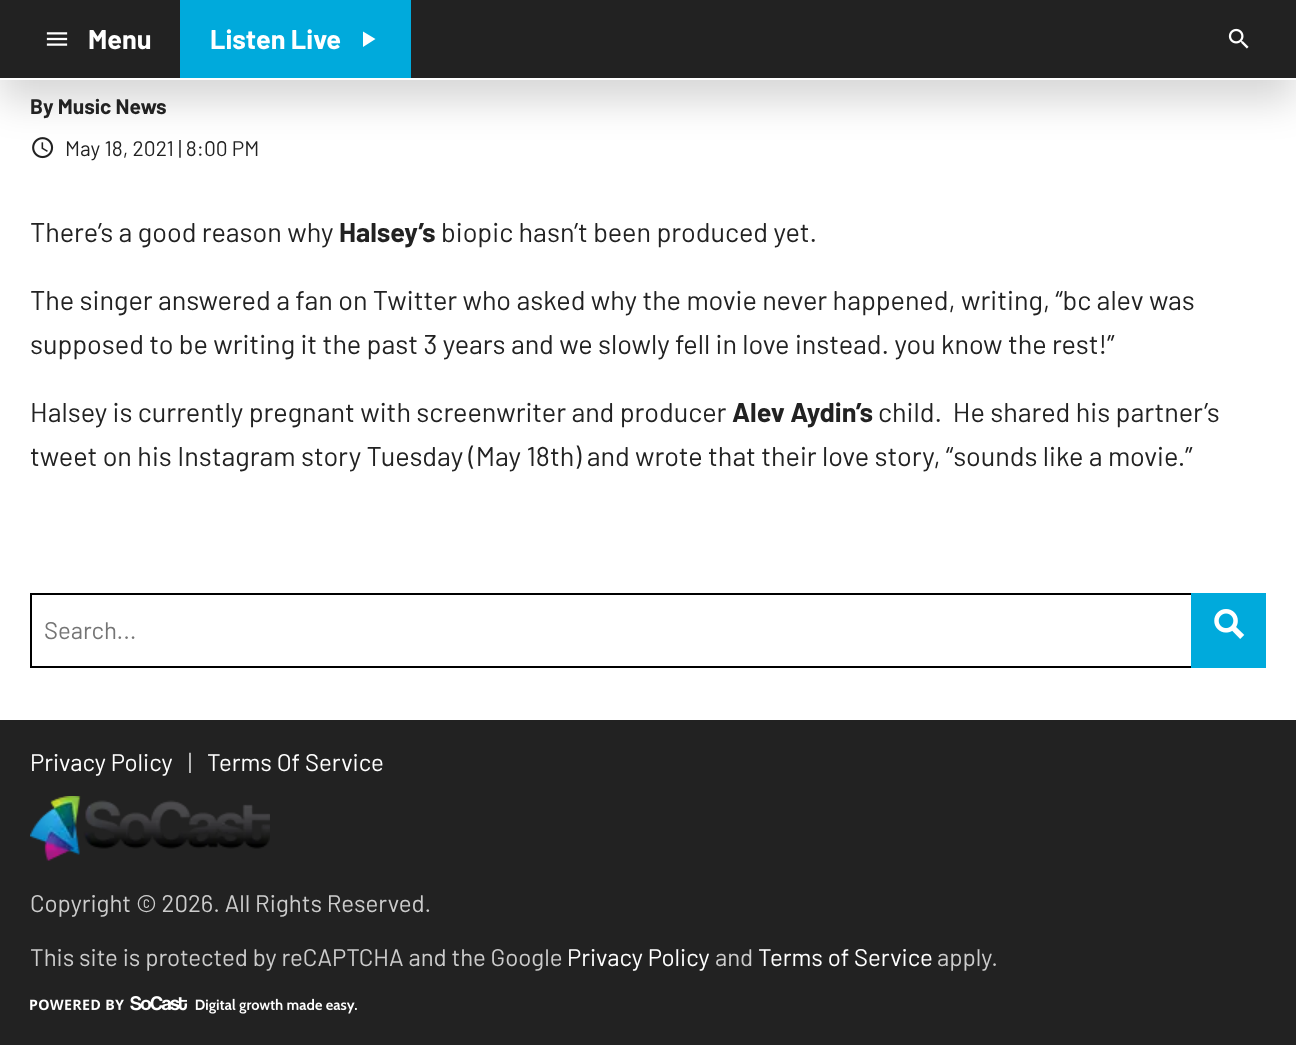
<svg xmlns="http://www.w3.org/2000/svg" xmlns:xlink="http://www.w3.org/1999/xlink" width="1296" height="1045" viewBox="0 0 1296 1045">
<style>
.cls-1{font:bold 27px Barlow;fill:#ffffff}
.cls-2{font:bold 21px Barlow;fill:#222222}
.cls-3{font:21px Barlow;fill:#222222}
.cls-4{font:27px Barlow;fill:#222222}
.cls-5{font:bold 27px Barlow;fill:#222222}
.cls-6{font:24px Barlow;fill:#757575}
.cls-7{font:24px Barlow;fill:#ffffff}
.cls-8{font:24px Barlow;fill:#cccccc}
</style>
<rect width="100%" height="100%" fill="#ffffff"/>
<image xlink:href="image2.png" x="32" y="137" width="22" height="22"/>
<rect fill="#000000" fill-opacity="0.16" filter="blur(19px)" x="0" y="20" width="1296" height="81"/>
<rect fill="#222222" x="0" y="0" width="1296" height="78"/>
<rect fill="#ffffff" x="0" y="78" width="1296" height="2"/>
<image xlink:href="image0.png" x="46" y="32" width="22" height="14"/>
<rect fill="#00aadc" x="180" y="0" width="231" height="78"/>
<path fill="#ffffff" d="M363 31.5V47L375.5 39Z"/>
<image xlink:href="image1.png" x="1228" y="28" width="21" height="21"/>
<rect fill="none" stroke="#000000" stroke-width="2" x="31" y="594" width="1234" height="73"/>
<rect fill="#00aadc" x="1191" y="593" width="75" height="75"/>
<image xlink:href="image3.png" x="1214" y="609" width="31" height="30"/>
<rect fill="#222222" x="0" y="720" width="1296" height="325"/>
<image xlink:href="image4.png" x="30" y="796" width="240" height="65"/>
<image xlink:href="image5.png" x="30" y="996" width="327" height="18"/>
<text class="cls-1" x="88" y="49">Menu</text>
<text class="cls-1" x="210" y="49">Listen Live</text>
<text class="cls-2" x="30" y="114">By Music News</text>
<text class="cls-3" x="65" y="156">May 18, 2021 | 8:00 PM</text>
<text class="cls-4" x="30" y="242">There’s a good reason why</text>
<text class="cls-5" x="339" y="242">Halsey’s</text>
<text class="cls-4" x="441" y="242">biopic hasn’t been produced yet.</text>
<text class="cls-4"><tspan x="30" y="310">The singer answered a fan on Twitter who asked why the movie never happened, writing, “bc alev was</tspan><tspan x="30" y="354">supposed to be writing it the past 3 years and we slowly fell in love instead. you know the rest!”</tspan></text>
<text class="cls-4" x="30" y="422">Halsey is currently pregnant with screenwriter and producer</text>
<text class="cls-5" x="732" y="422">Alev Aydin’s</text>
<text class="cls-4" xml:space="preserve" x="878" y="422">child.  He shared his partner’s</text>
<text class="cls-4" x="30" y="466">tweet on his Instagram story Tuesday (May 18th) and wrote that their love story, “sounds like a movie.”</text>
<text class="cls-6" x="44" y="639">Search...</text>
<text class="cls-7" x="30" y="771">Privacy Policy</text>
<text class="cls-8" x="188" y="771">|</text>
<text class="cls-7" x="207" y="771">Terms Of Service</text>
<text class="cls-8" x="30" y="912">Copyright © 2026. All Rights Reserved.</text>
<text class="cls-8" x="30" y="966">This site is protected by reCAPTCHA and the Google</text>
<text class="cls-7" x="567" y="966">Privacy Policy</text>
<text class="cls-8" x="715" y="966">and</text>
<text class="cls-7" x="758" y="966">Terms of Service</text>
<text class="cls-8" x="937" y="966">apply.</text>
</svg>
